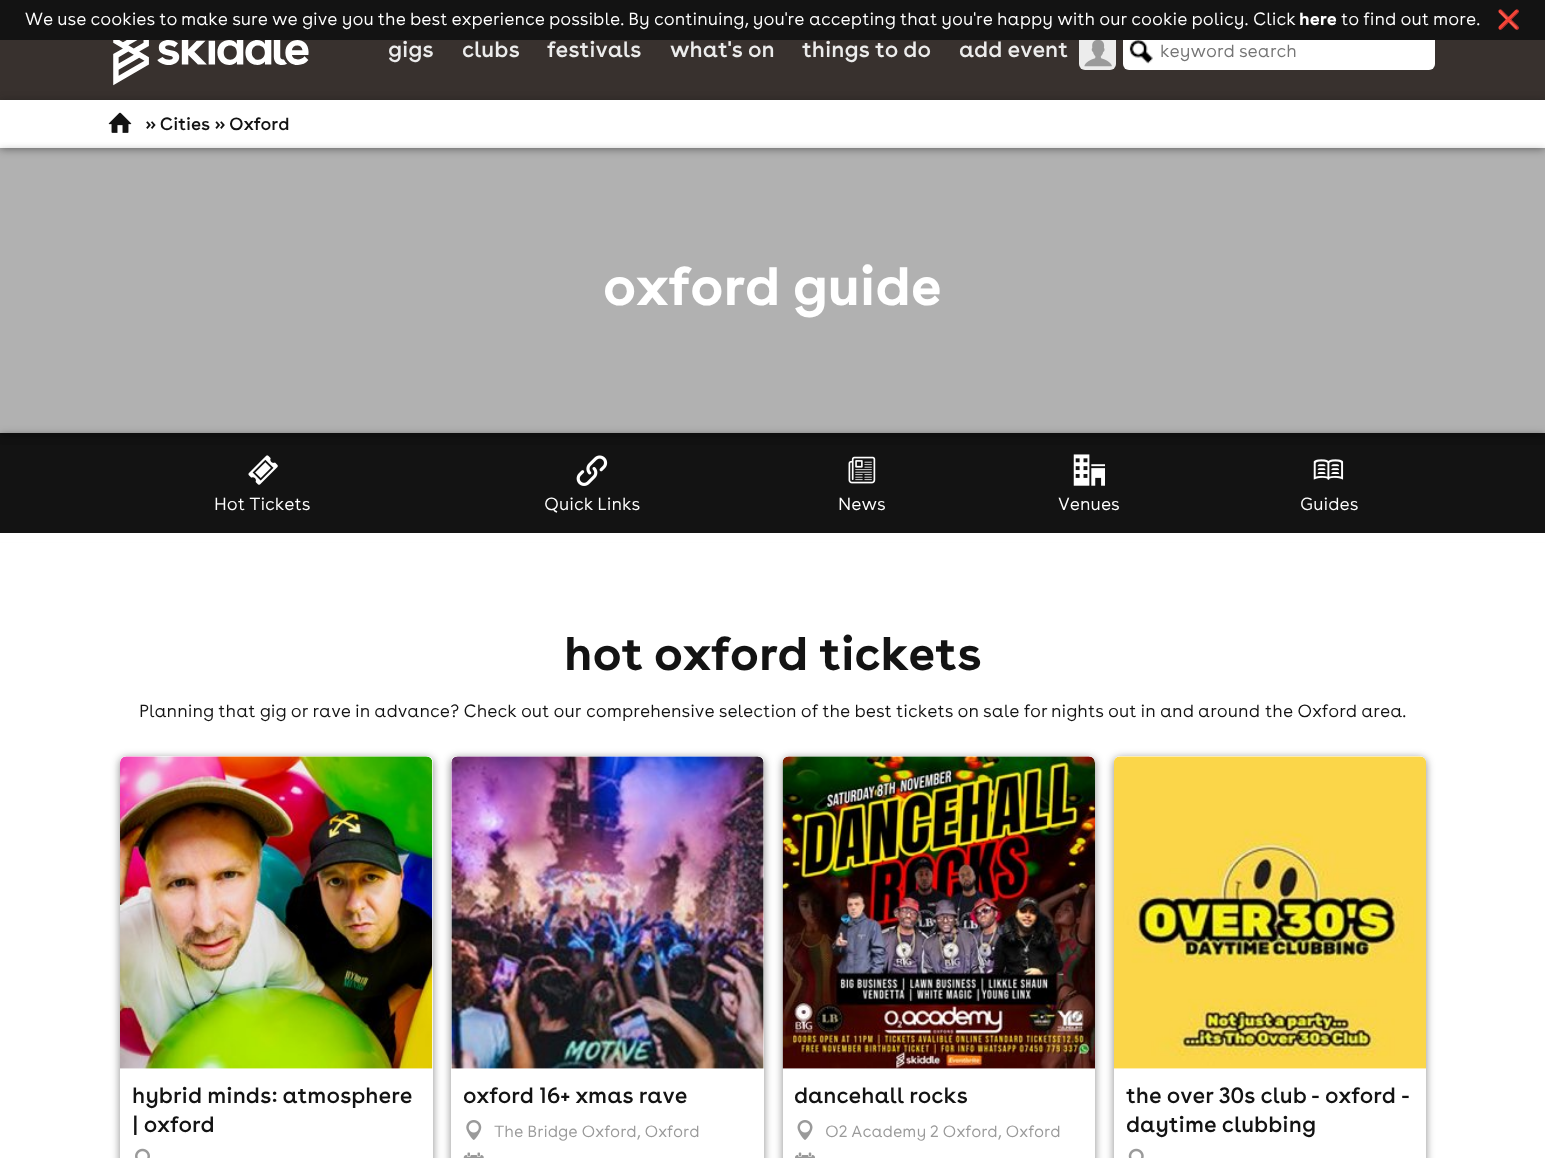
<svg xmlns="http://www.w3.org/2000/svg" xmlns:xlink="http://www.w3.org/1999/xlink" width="1545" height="1158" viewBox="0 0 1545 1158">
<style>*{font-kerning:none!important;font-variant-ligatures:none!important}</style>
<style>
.cls-1{font:300 18.75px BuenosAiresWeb;fill:#ffffff}
.cls-2{font:bold 18.75px BuenosAiresWeb;fill:#ffffff}
.cls-3{font:18.75px Noto Color Emoji;fill:#f03a17}
.cls-4{font:23.5px BuenosAiresWeb;fill:#ececec}
.cls-5{font:300 18.75px BuenosAiresWeb;fill:#757575}
.cls-6{font:bold 57.5px BuenosAiresWeb;fill:#ffffff}
.cls-7{font:bold 50px BuenosAiresWeb;fill:#131313}
.cls-8{font:300 18.75px BuenosAiresWeb;fill:#131313}
.cls-9{font:23.5px BuenosAiresWeb;fill:#131313}
.cls-10{font:300 17.25px BuenosAiresWeb;fill:#9a9a9a}
.cls-11{font:18.75px BuenosAiresWeb;fill:#131313}
</style>
<defs>
<clipPath id="clip1"><path d="M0 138H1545V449H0ZM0 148H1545V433H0Z" clip-rule="evenodd"/></clipPath>
</defs>
<rect width="100%" height="100%" fill="#ffffff"/>
<rect fill="#38312e" x="0" y="40" width="1545" height="60"/>
<rect fill="#ececec" x="1079" y="33" width="37" height="37" rx="6"/>
<rect fill="#ffffff" x="1123" y="33" width="312" height="37" rx="6"/>
<rect fill="#131313" x="0" y="0" width="1545" height="40"/>
<image xlink:href="image0.png" x="113" y="40" width="196" height="46"/>
<image xlink:href="image1.png" x="1084" y="40" width="28" height="27"/>
<image xlink:href="image2.png" x="1129" y="40" width="24" height="24"/>
<rect fill="#000000" fill-opacity="0.23" filter="blur(4.5px)" x="0" y="434" width="1545" height="100"/>
<rect fill="#000000" fill-opacity="0.16" filter="blur(2.5px)" x="0" y="434" width="1545" height="100"/>
<rect fill="#131313" x="0" y="433" width="1545" height="100"/>
<rect fill="#131313" fill-opacity="0.5" filter="blur(4.5px)" x="0" y="101" width="1545" height="48"/>
<rect fill="#ffffff" x="0" y="100" width="1545" height="48"/>
<g clip-path="url(#clip1)">
<rect fill="#000000" fill-opacity="0.23" filter="blur(4px)" x="0" y="151" width="1545" height="285"/>
<rect fill="#000000" fill-opacity="0.16" filter="blur(4px)" x="0" y="151" width="1545" height="285"/>
</g>
<rect fill="#131313" fill-opacity="0.33" x="0" y="148" width="1545" height="285"/>
<image xlink:href="image3.png" x="248" y="455" width="30" height="30"/>
<image xlink:href="image4.png" x="576" y="455" width="32" height="31"/>
<image xlink:href="image5.png" x="848" y="456" width="28" height="28"/>
<image xlink:href="image6.png" x="1073" y="454" width="32" height="32"/>
<image xlink:href="image7.png" x="1313" y="459" width="31" height="21"/>
<rect fill="#ffffff" x="0" y="533" width="1545" height="9"/>
<rect fill="#131313" fill-opacity="0.5" filter="blur(4.5px)" x="120" y="758" width="313" height="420" rx="6"/>
<rect fill="#ffffff" x="120" y="756" width="313" height="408" rx="6"/>
<image xlink:href="image8.png" x="120" y="756" width="313" height="313"/>
<image xlink:href="image9.png" x="135" y="1148" width="15" height="10"/>
<rect fill="#131313" fill-opacity="0.5" filter="blur(4.5px)" x="451" y="758" width="313" height="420" rx="6"/>
<rect fill="#ffffff" x="451" y="756" width="313" height="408" rx="6"/>
<image xlink:href="image10.png" x="451" y="756" width="313" height="313"/>
<image xlink:href="image11.png" x="466" y="1120" width="16" height="20"/>
<image xlink:href="image12.png" x="463" y="1152" width="21" height="6"/>
<rect fill="#131313" fill-opacity="0.5" filter="blur(4.5px)" x="783" y="758" width="312" height="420" rx="6"/>
<rect fill="#ffffff" x="783" y="756" width="312" height="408" rx="6"/>
<image xlink:href="image13.png" x="782" y="756" width="313" height="313"/>
<image xlink:href="image14.png" x="797" y="1120" width="16" height="20"/>
<image xlink:href="image15.png" x="795" y="1152" width="20" height="6"/>
<rect fill="#131313" fill-opacity="0.5" filter="blur(4.5px)" x="1114" y="758" width="312" height="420" rx="6"/>
<rect fill="#ffffff" x="1114" y="756" width="312" height="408" rx="6"/>
<image xlink:href="image16.png" x="1114" y="756" width="312" height="313"/>
<image xlink:href="image17.png" x="1128" y="1148" width="16" height="10"/>
<image xlink:href="image18.png" x="108" y="112" width="24" height="21"/>
<text class="cls-1" x="25" y="25">We use cookies to</text>
<text class="cls-1" x="181" y="25">make sure we</text>
<text class="cls-1" x="302" y="25">give you the best experience</text>
<text class="cls-1" x="549" y="25">possible. By continuing, you're</text>
<text class="cls-1" x="809" y="25">accepting that you're</text>
<text class="cls-1" x="997" y="25">happy with our cookie policy.</text>
<text class="cls-1" x="1253" y="25">Click</text>
<text class="cls-2" x="1299" y="25">here</text>
<text class="cls-1" x="1341" y="25">to find out more.</text>
<text class="cls-3" x="1497" y="26">❌</text>
<text class="cls-4" x="388" y="57">gigs</text>
<text class="cls-4" x="462" y="57">clubs</text>
<text class="cls-4" x="547" y="57">festivals</text>
<text class="cls-4" x="670" y="57">what's on</text>
<text class="cls-4" x="802" y="57">things to do</text>
<text class="cls-4" x="959" y="57">add event</text>
<text class="cls-5" x="1160" y="57">keyword search</text>
<text class="cls-6" x="603" y="305">oxford guide</text>
<text class="cls-1" x="214" y="510">Hot Tickets</text>
<text class="cls-1" x="544" y="510">Quick Links</text>
<text class="cls-1" x="838" y="510">News</text>
<text class="cls-1" x="1058" y="510">Venues</text>
<text class="cls-1" x="1300" y="510">Guides</text>
<text class="cls-7" x="564" y="670">hot oxford tickets</text>
<text class="cls-8" x="139" y="717">Planning that gig or rave</text>
<text class="cls-8" x="355" y="717">in advance? Check out our</text>
<text class="cls-8" x="586" y="717">comprehensive selection of the best</text>
<text class="cls-8" x="896" y="717">tickets on sale for</text>
<text class="cls-8" x="1051" y="717">nights out in and around</text>
<text class="cls-8" x="1265" y="717">the Oxford area.</text>
<text class="cls-9"><tspan x="132" y="1103">hybrid minds: atmosphere</tspan><tspan x="132" y="1132">| oxford</tspan></text>
<text class="cls-9" x="463" y="1103">oxford 16+ xmas rave</text>
<text class="cls-10" x="494" y="1137">The Bridge Oxford, Oxford</text>
<text class="cls-9" x="794" y="1103">dancehall rocks</text>
<text class="cls-10" x="825" y="1137">O2 Academy 2 Oxford, Oxford</text>
<text class="cls-9" x="1126" y="1103">the over 30s club</text>
<text class="cls-9" x="1311" y="1103">- oxford -</text>
<text class="cls-9" x="1126" y="1132">daytime clubbing</text>
<text class="cls-11" x="145" y="130">» Cities » Oxford</text>
</svg>
